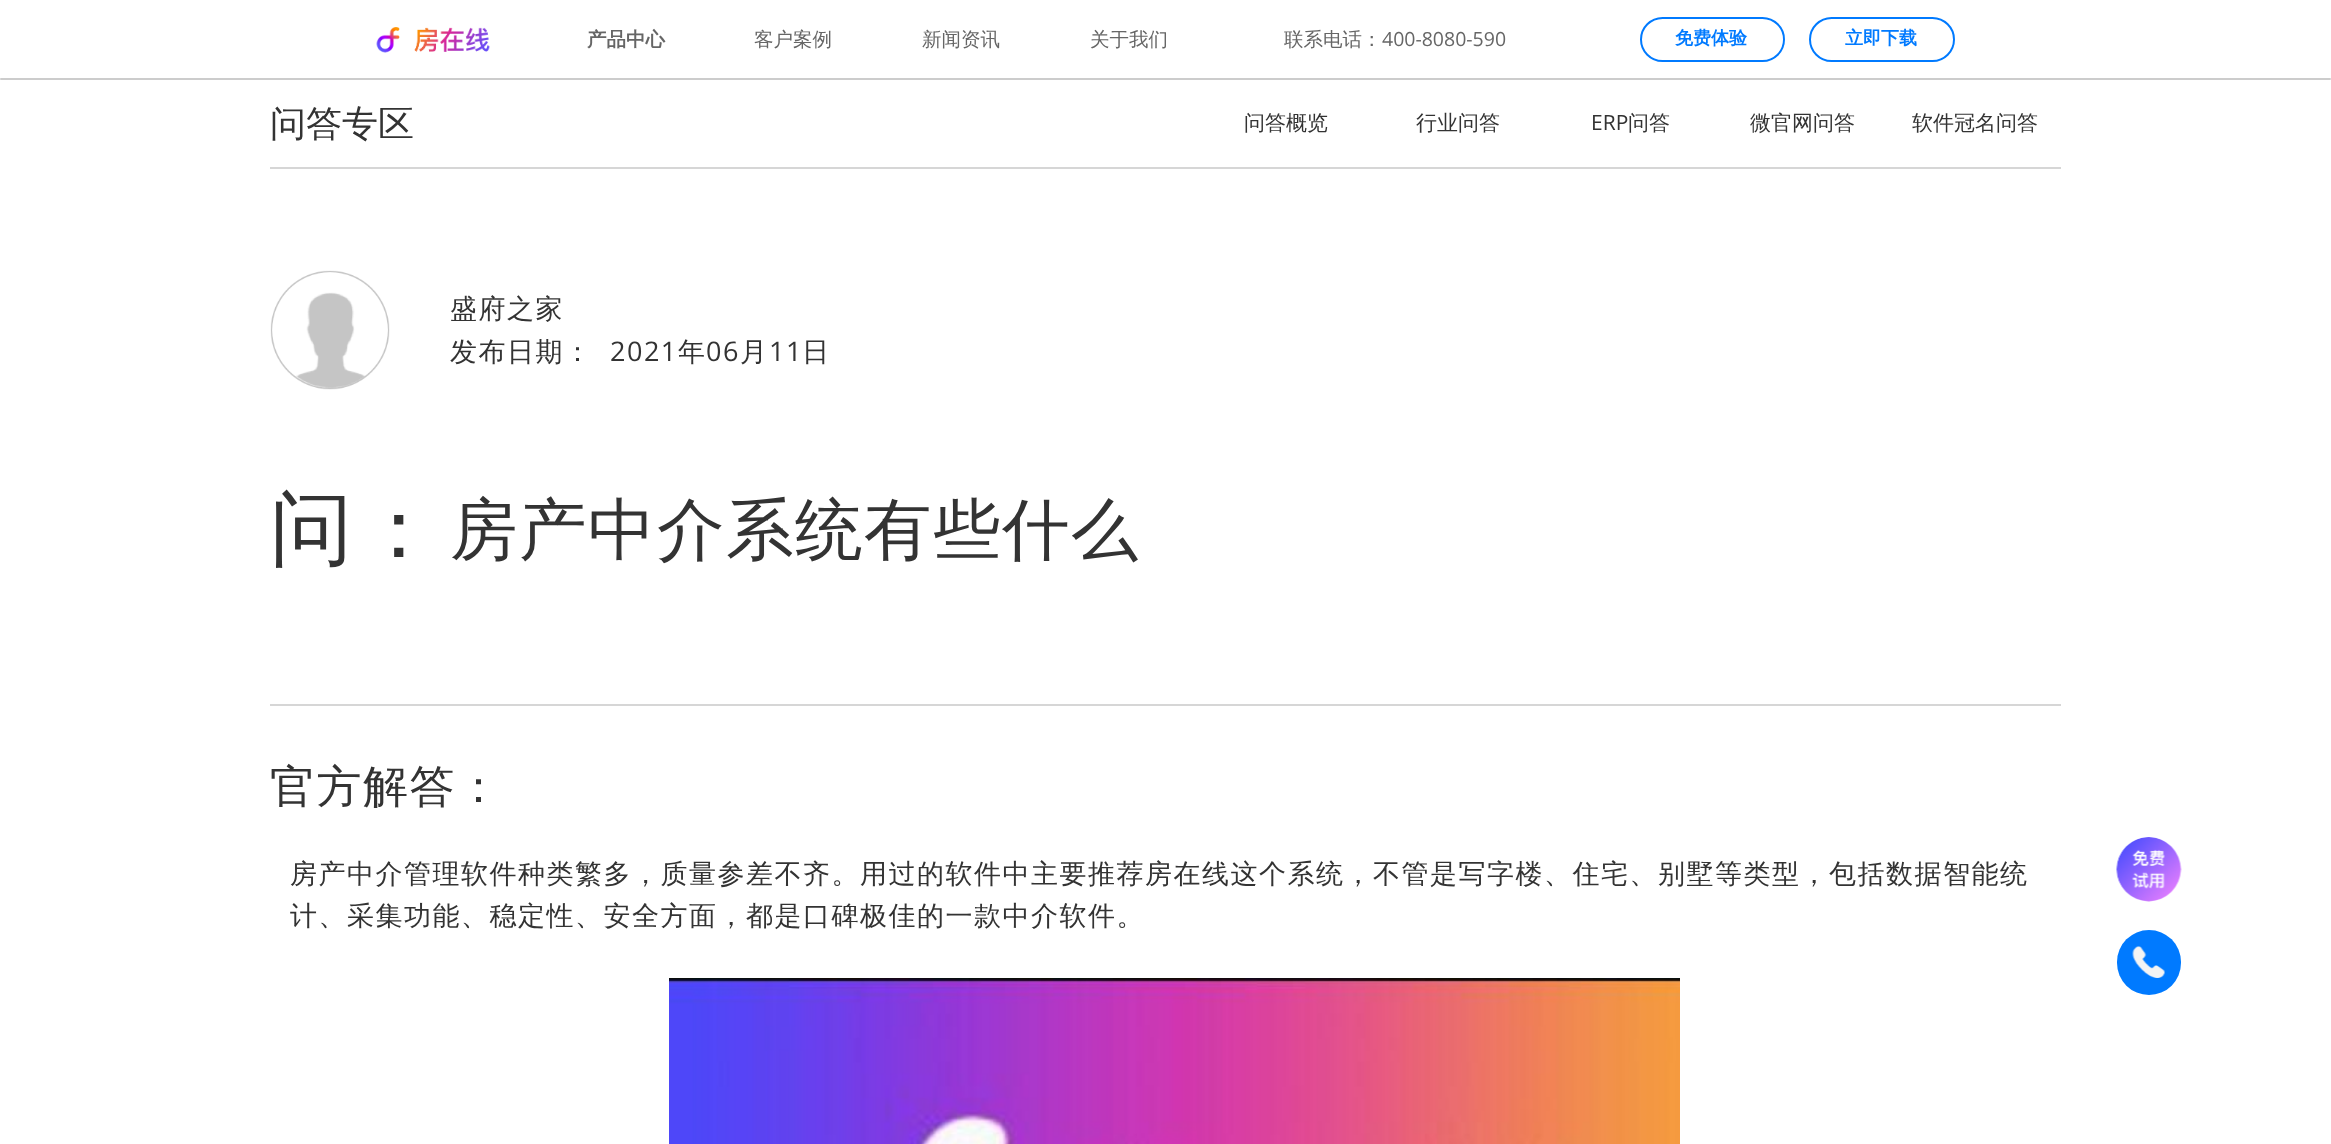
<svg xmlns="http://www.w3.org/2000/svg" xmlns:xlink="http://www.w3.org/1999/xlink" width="2331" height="1144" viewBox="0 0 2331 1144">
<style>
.cls-1{font:bold 19.5px WenQuanYi Zen Hei;fill:#666666}
.cls-2{font:500 19.5px WenQuanYi Zen Hei;fill:#666666}
.cls-3{font:19.5px Open Sans;fill:#666666}
.cls-4{font:bold 18px WenQuanYi Zen Hei;fill:#007aff}
.cls-5{font:500 36px WenQuanYi Zen Hei;fill:#333333}
.cls-6{font:500 21px WenQuanYi Zen Hei;fill:#333333}
.cls-7{font:21px Open Sans;fill:#333333}
.cls-8{font:500 27px WenQuanYi Zen Hei;letter-spacing:1.5px;fill:#333333}
.cls-9{font:27px Open Sans;letter-spacing:1.5px;fill:#333333}
.cls-10{font:500 82.5px WenQuanYi Zen Hei;letter-spacing:5px;fill:#333333}
.cls-11{font:500 67.5px WenQuanYi Zen Hei;letter-spacing:1.5px;fill:#333333}
.cls-12{font:500 45px WenQuanYi Zen Hei;letter-spacing:1.5px;fill:#333333}
</style>
<rect width="100%" height="100%" fill="#ffffff"/>
<image xlink:href="image0.png" x="376" y="27" width="114" height="26"/>
<rect fill="none" stroke="#007aff" stroke-width="2" x="1641" y="18" width="143" height="43" rx="21.5"/>
<rect fill="none" stroke="#007aff" stroke-width="2" x="1810" y="18" width="144" height="43" rx="21.5"/>
<rect fill="#cccccc" x="0" y="78" width="2331" height="2" rx="1"/>
<rect fill="#d6d6d6" x="270" y="167" width="1791" height="2"/>
<image xlink:href="image1.png" x="270" y="270" width="120" height="120"/>
<rect fill="#d6d6d6" x="270" y="704" width="1791" height="2"/>
<image xlink:href="image2.png" x="669" y="978" width="1011" height="166"/>
<image xlink:href="image3.png" x="2116" y="837" width="66" height="65"/>
<rect fill="#007aff" x="2117" y="930" width="64" height="65" rx="32"/>
<image xlink:href="image4.png" x="2132" y="946" width="33" height="32"/>
<text class="cls-1" x="587" y="46">产品中心</text>
<text class="cls-2" x="754" y="46">客户案例</text>
<text class="cls-2" x="922" y="46">新闻资讯</text>
<text class="cls-2" x="1090" y="46">关于我们</text>
<text class="cls-2" x="1284" y="46">联系电话：</text>
<text class="cls-3" x="1382" y="46">400-8080-590</text>
<text class="cls-4" x="1675" y="44">免费体验</text>
<text class="cls-4" x="1845" y="44">立即下载</text>
<text class="cls-5" x="270" y="136">问答专区</text>
<text class="cls-6" x="1244" y="130">问答概览</text>
<text class="cls-6" x="1416" y="130">行业问答</text>
<text class="cls-7" x="1591" y="130">ERP</text>
<text class="cls-6" x="1628" y="130">问答</text>
<text class="cls-6" x="1750" y="130">微官网问答</text>
<text class="cls-6" x="1912" y="130">软件冠名问答</text>
<text class="cls-8"><tspan x="450" y="318">盛府之家</tspan><tspan x="450" y="361">发布日期：</tspan></text>
<text class="cls-9" x="610" y="361">2021</text>
<text class="cls-8" x="678" y="361">年</text>
<text class="cls-9" x="706" y="361">06</text>
<text class="cls-8" x="740" y="361">月</text>
<text class="cls-9" x="769" y="361">11</text>
<text class="cls-8" x="802" y="361">日</text>
<text class="cls-10" x="270" y="557">问：</text>
<text class="cls-11" x="450" y="553">房产中介系统有些什么</text>
<text class="cls-12" x="270" y="802">官方解答：</text>
<text class="cls-8"><tspan x="290" y="883">房产中介管理软件种类繁多，质量参差不齐。用过的软件中主要推荐房在线这个系统，不管是写字楼、住宅、别墅等类型，包括数据智能统</tspan><tspan x="290" y="925">计、采集功能、稳定性、安全方面，都是口碑极佳的一款中介软件。</tspan></text>
</svg>
